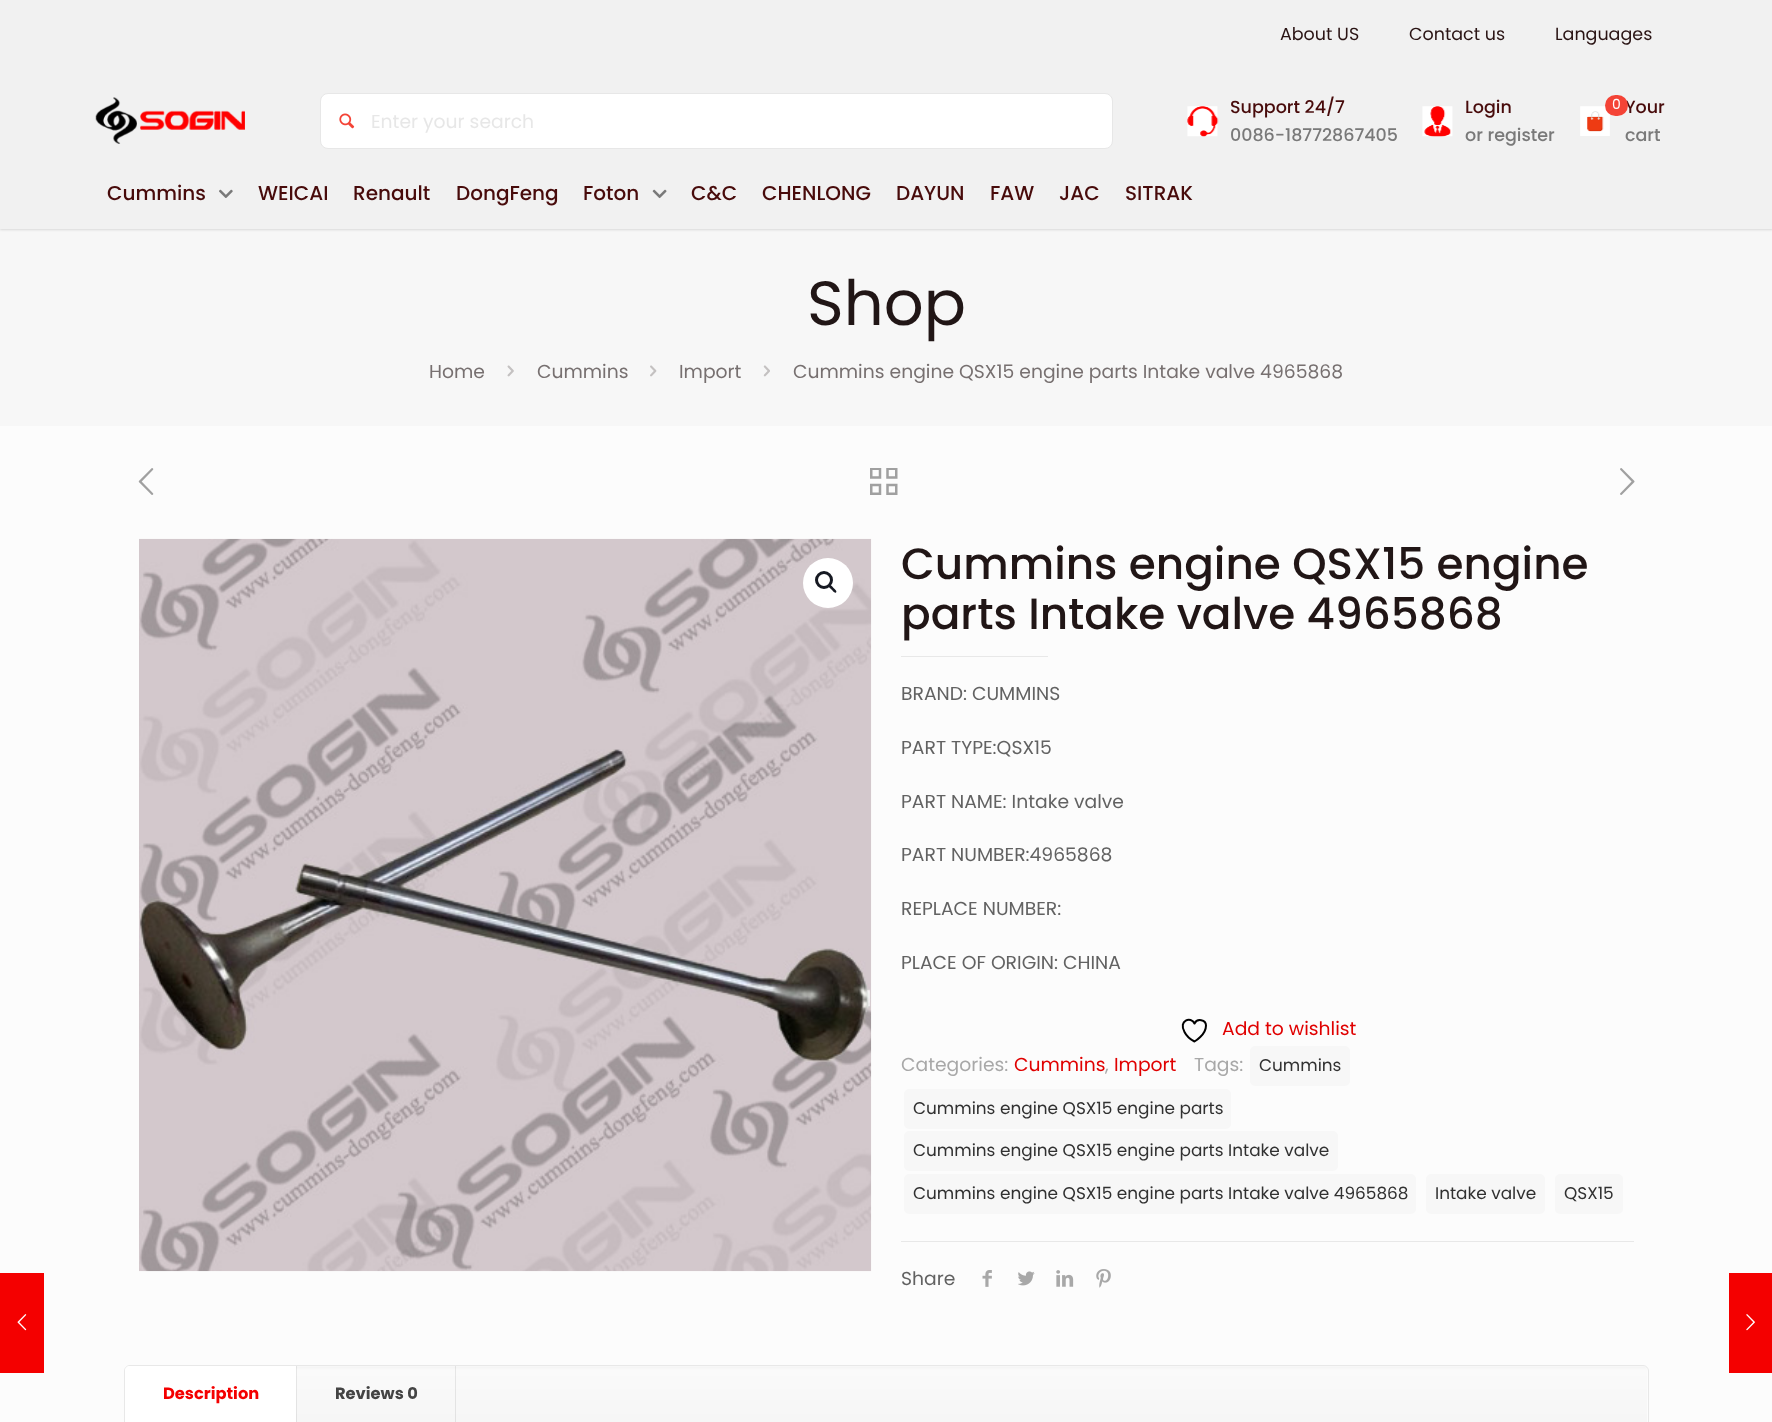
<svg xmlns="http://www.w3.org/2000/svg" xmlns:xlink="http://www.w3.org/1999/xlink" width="1772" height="1422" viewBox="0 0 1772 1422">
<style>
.cls-1{font:17.5px Poppins;fill:#2a1414}
.cls-2{font:18.75px Poppins;fill:#e7e7e7}
.cls-3{font:500 17.5px Poppins;fill:#480b0b}
.cls-4{font:500 17.5px Poppins;fill:#797979}
.cls-5{font:14px Poppins;fill:#ffffff}
.cls-6{font:500 20px Poppins;fill:#480b0b}
.cls-7{font:62.5px Poppins;fill:#211616}
.cls-8{font:18.75px Poppins;fill:#777070}
.cls-9{font:500 43.75px Poppins;fill:#211616}
.cls-10{font:18.75px Poppins;fill:#626262}
.cls-11{font:18.75px Poppins;fill:#e00000}
.cls-12{font:18.75px Poppins;fill:#a8a8a8}
.cls-13{font:16.9px Poppins;fill:#313131}
.cls-14{font:bold 16.25px Poppins;fill:#f40000}
.cls-15{font:bold 16.25px Poppins;fill:#444444}
</style>
<rect width="100%" height="100%" fill="#fcfcfc"/>
<rect fill="#f40000" x="0" y="1273" width="44" height="100"/>
<image xlink:href="image0.png" x="17" y="1314" width="10" height="17"/>
<rect fill="#f1f1f1" x="0" y="0" width="1772" height="161"/>
<image xlink:href="image1.png" x="95" y="97" width="150" height="47"/>
<rect fill="#ffffff" stroke="#e7e7e7" x="320.5" y="93.5" width="792" height="55" rx="7.5"/>
<image xlink:href="image2.png" x="339" y="113" width="16" height="16"/>
<image xlink:href="image3.png" x="1187" y="106" width="32" height="31"/>
<image xlink:href="image4.png" x="1422" y="106" width="31" height="31"/>
<image xlink:href="image5.png" x="1580" y="106" width="30" height="30"/>
<rect fill="#f7f7f7" x="0" y="229" width="1772" height="197"/>
<rect fill="#000000" fill-opacity="0.12" filter="blur(1px)" x="0" y="163" width="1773" height="67"/>
<rect fill="#f1f1f1" x="0" y="161" width="1772" height="68"/>
<image xlink:href="image6.png" x="219" y="189" width="14" height="9"/>
<image xlink:href="image7.png" x="652" y="189" width="15" height="10"/>
<image xlink:href="image8.png" x="507" y="365" width="7" height="12"/>
<image xlink:href="image9.png" x="650" y="365" width="7" height="12"/>
<image xlink:href="image10.png" x="763" y="365" width="7" height="12"/>
<image xlink:href="image11.png" x="138" y="468" width="16" height="27"/>
<image xlink:href="image12.png" x="870" y="468" width="28" height="27"/>
<image xlink:href="image13.png" x="1620" y="468" width="15" height="27"/>
<image xlink:href="image14.png" x="139" y="538" width="733" height="734"/>
<circle fill="#ffffff" cx="828" cy="583" r="25"/>
<circle fill="none" stroke="#161922" stroke-width="3" cx="824" cy="580" r="7.5"/>
<path fill="#161922" d="M829 585C830.5 584 832.5 587 833.5 588C834 588.5 837.5 591 836 592.5C834.5 593.5 832.5 590.5 831.5 589.5C831 589 827.5 586.5 829 585Z"/>
<rect fill="#e8e8e8" x="901" y="656" width="147" height="1"/>
<path fill="none" stroke="#000000" stroke-width="2" stroke-linecap="round" stroke-linejoin="round" d="M1206 1025.5C1206 1019.5 1197 1018 1194.5 1023.5C1191 1016 1178 1020.5 1184.5 1032C1186.5 1036 1190.5 1039.5 1194.5 1041.5C1194.5 1041.5 1206 1035 1206 1025.5Z"/>
<rect fill="#f7f7f7" x="1250" y="1046" width="100" height="40" rx="5"/>
<rect fill="#f7f7f7" x="904" y="1089" width="327" height="40" rx="5"/>
<rect fill="#f7f7f7" x="904" y="1131" width="434" height="40" rx="5"/>
<rect fill="#f7f7f7" x="904" y="1174" width="512" height="40" rx="5"/>
<rect fill="#f7f7f7" x="1426" y="1174" width="119" height="40" rx="5"/>
<rect fill="#f7f7f7" x="1555" y="1174" width="68" height="40" rx="5"/>
<rect fill="#e8e8e8" x="901" y="1241" width="733" height="1"/>
<image xlink:href="image15.png" x="982" y="1270" width="10" height="17"/>
<image xlink:href="image16.png" x="1018" y="1271" width="17" height="15"/>
<image xlink:href="image17.png" x="1056" y="1270" width="18" height="17"/>
<image xlink:href="image18.png" x="1096" y="1269" width="15" height="19"/>
<rect fill="none" stroke="#e8e8e8" x="124.5" y="1365.5" width="1524" height="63" rx="5.5"/>
<image xlink:href="image19.png" x="125" y="1366" width="1522" height="56"/>
<rect fill="#000000" fill-opacity="0.08" x="296" y="1366" width="1" height="56"/>
<path fill="#ffffff" d="M130 1366H296V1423H125V1371C125 1368 127 1366 130 1366Z"/>
<rect fill="#000000" fill-opacity="0.08" x="455" y="1366" width="1" height="56"/>
<rect fill="#f40000" x="1729" y="1273" width="43" height="100"/>
<image xlink:href="image20.png" x="1746" y="1314" width="9" height="17"/>
<text class="cls-1" x="1280" y="40">About US</text>
<text class="cls-1" x="1409" y="40">Contact us</text>
<text class="cls-1" x="1555" y="40">Languages</text>
<text class="cls-2" x="371" y="128">Enter your search</text>
<text class="cls-3" x="1230" y="113">Support 24/7</text>
<text class="cls-4" x="1230" y="141">0086-18772867405</text>
<text class="cls-3" x="1465" y="113">Login</text>
<text class="cls-4" x="1465" y="141">or register</text>
<text class="cls-3" x="1625" y="113">Your</text>
<rect fill="#f44336" x="1605" y="95" width="23" height="21" rx="10.5"/>
<text class="cls-5" x="1612" y="109">0</text>
<text class="cls-4" x="1625" y="141">cart</text>
<text class="cls-6" x="107" y="200">Cummins</text>
<text class="cls-6" x="258" y="200">WEICAI</text>
<text class="cls-6" x="353" y="200">Renault</text>
<text class="cls-6" x="456" y="200">DongFeng</text>
<text class="cls-6" x="583" y="200">Foton</text>
<text class="cls-6" x="691" y="200">C&amp;C</text>
<text class="cls-6" x="762" y="200">CHENLONG</text>
<text class="cls-6" x="896" y="200">DAYUN</text>
<text class="cls-6" x="990" y="200">FAW</text>
<text class="cls-6" x="1059" y="200">JAC</text>
<text class="cls-6" x="1125" y="200">SITRAK</text>
<text class="cls-7" x="807" y="325">Shop</text>
<text class="cls-8" x="429" y="378">Home</text>
<text class="cls-8" x="537" y="378">Cummins</text>
<text class="cls-8" x="679" y="378">Import</text>
<text class="cls-8" x="793" y="378">Cummins engine QSX15 engine parts Intake valve 4965868</text>
<text class="cls-9"><tspan x="901" y="579">Cummins engine QSX15 engine</tspan><tspan x="901" y="629">parts Intake valve 4965868</tspan></text>
<text class="cls-10" x="901" y="700">BRAND: CUMMINS</text>
<text class="cls-10" x="901" y="754">PART TYPE:QSX15</text>
<text class="cls-10" x="901" y="808">PART NAME: Intake valve</text>
<text class="cls-10" x="901" y="861">PART NUMBER:4965868</text>
<text class="cls-10" x="901" y="915">REPLACE NUMBER:</text>
<text class="cls-10" x="901" y="969">PLACE OF ORIGIN: CHINA</text>
<text class="cls-11" x="1222" y="1035">Add to wishlist</text>
<text class="cls-12" x="901" y="1071">Categories:</text>
<text class="cls-11" x="1014" y="1071">Cummins</text>
<text class="cls-12" x="1194" y="1071">Tags:</text>
<text class="cls-13" x="1259" y="1071">Cummins</text>
<text class="cls-13" x="913" y="1114">Cummins engine QSX15 engine parts</text>
<text class="cls-13" x="913" y="1156">Cummins engine QSX15 engine parts Intake valve</text>
<text class="cls-13" x="913" y="1199">Cummins engine QSX15 engine parts Intake valve 4965868</text>
<text class="cls-13" x="1435" y="1199">Intake valve</text>
<text class="cls-13" x="1564" y="1199">QSX15</text>
<text class="cls-12" x="1105" y="1071">,</text>
<text class="cls-11" x="1114" y="1071">Import</text>
<text class="cls-10" x="901" y="1285">Share</text>
<text class="cls-14" x="163" y="1399">Description</text>
<text class="cls-15" x="335" y="1399">Reviews 0</text>
</svg>
